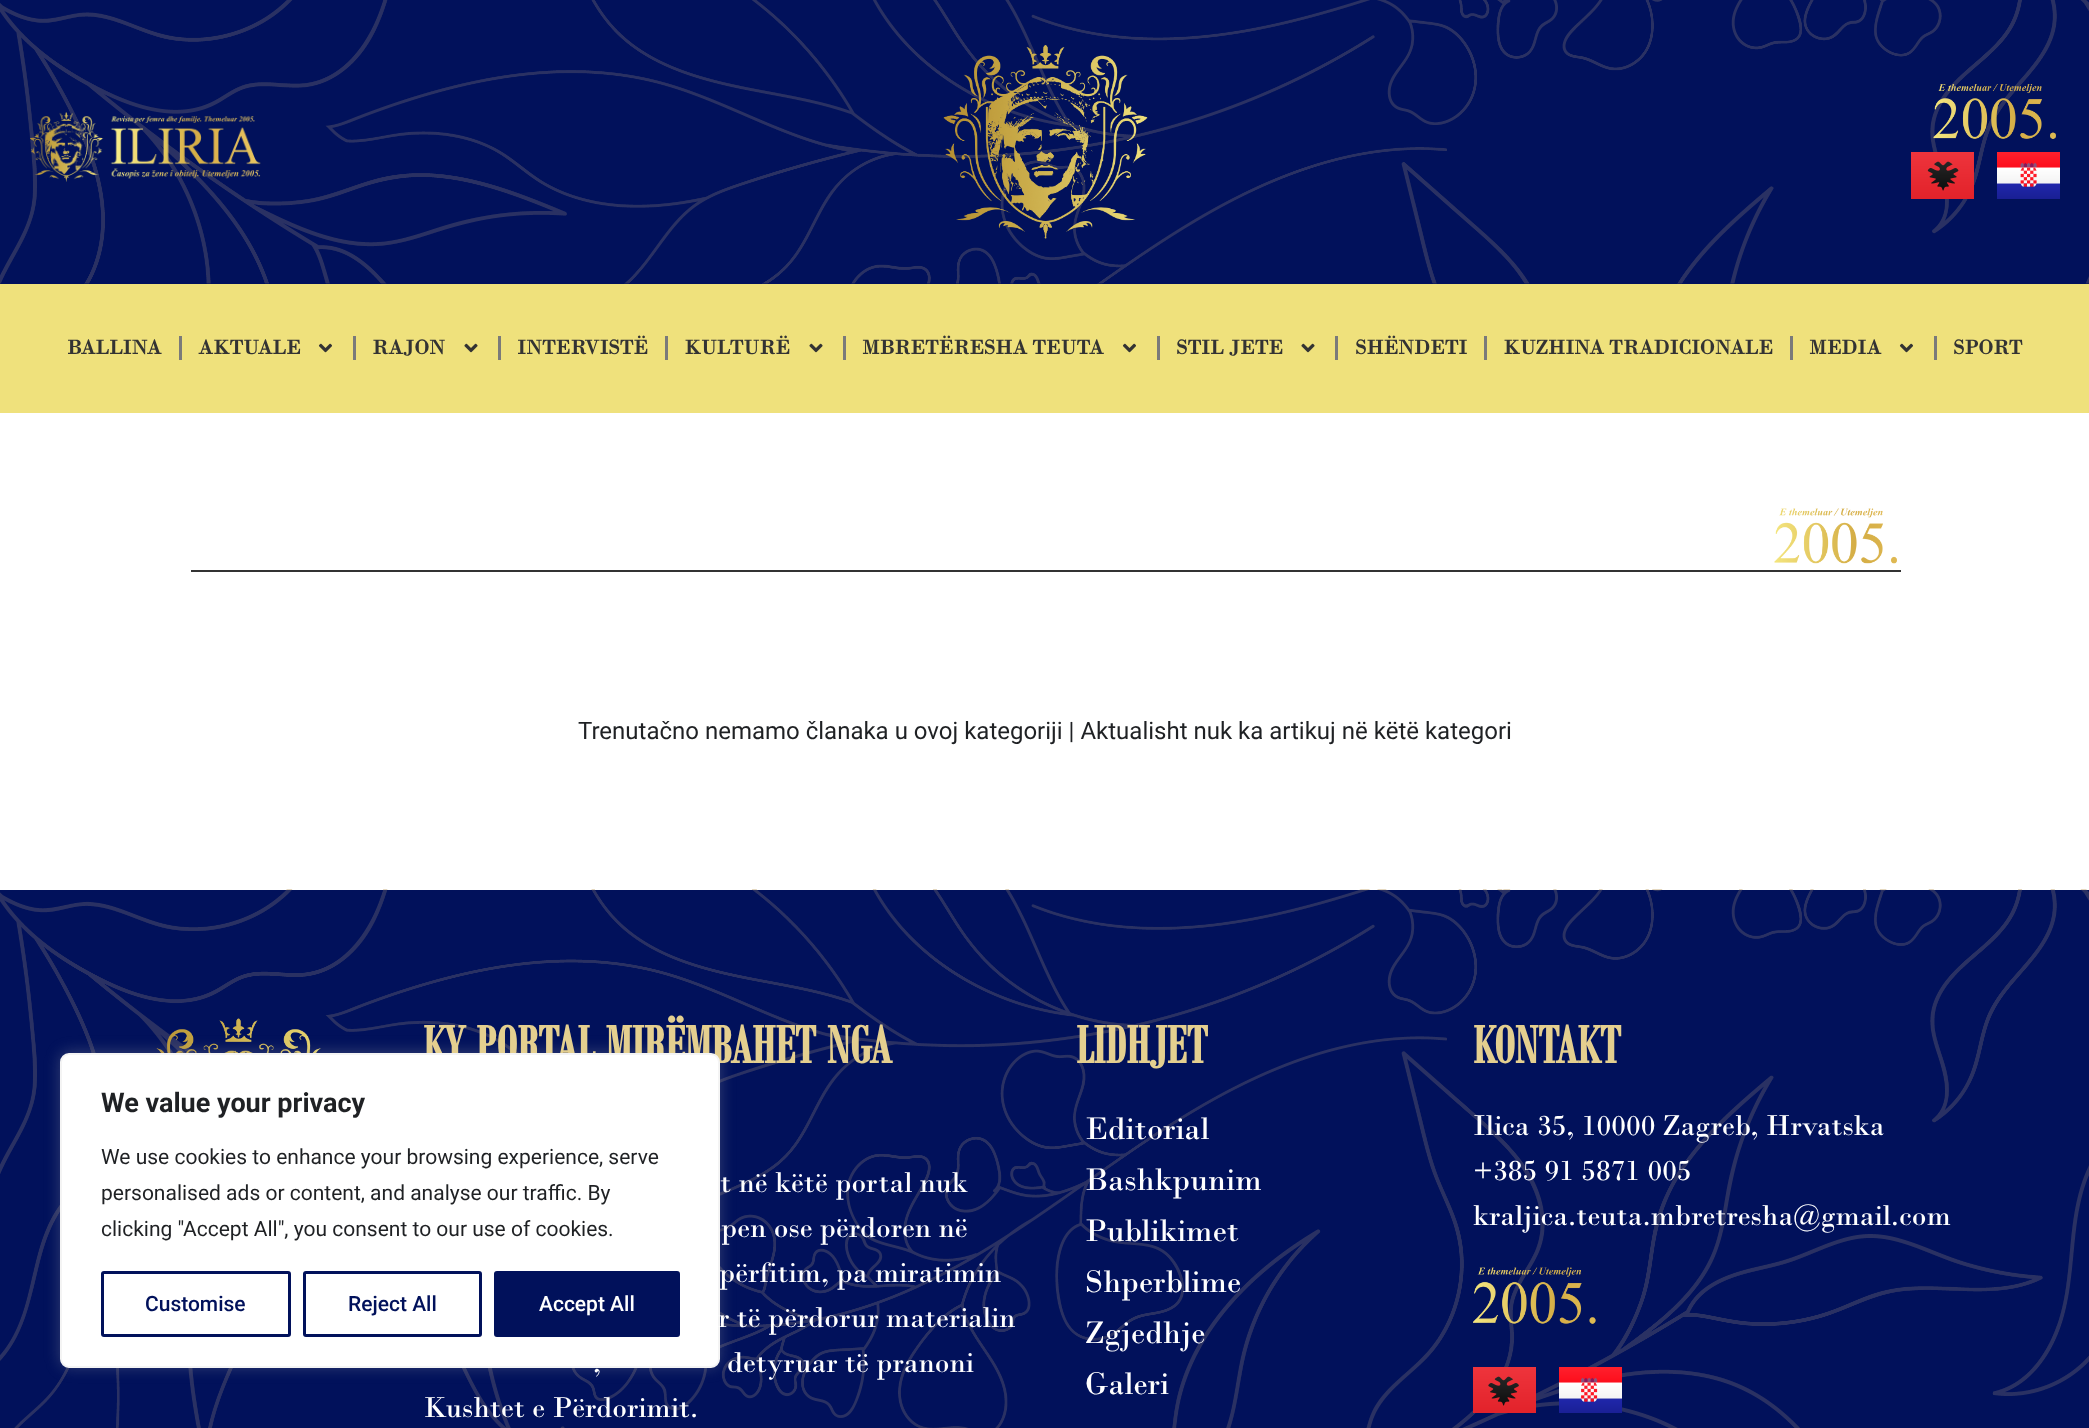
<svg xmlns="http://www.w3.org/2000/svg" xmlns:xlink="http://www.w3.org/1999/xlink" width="2089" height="1428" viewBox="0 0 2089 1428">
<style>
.cls-1{font:bold 21px 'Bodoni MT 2';fill:#333333}
.cls-2{font:24px Roboto;fill:#1f2124}
.cls-3{font:bold 57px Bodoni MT;fill:#e4cf8f}
.cls-4{font:500 21px Roboto;fill:#ffffff}
.cls-5{font:500 21px Roboto;fill:#01115b}
.cls-6{font:21px Roboto;fill:#1f2124}
.cls-7{font:bold 27px Roboto;fill:#1f2124}
.cls-8{font:30px Bodoni MT;fill:#ffffff}
.cls-9{font:33px Bodoni MT;fill:#ffffff}
</style>
<rect width="100%" height="100%" fill="#ffffff"/>
<rect fill="#01115b" x="0" y="0" width="2089" height="284"/>
<image xlink:href="image0.png" x="0" y="0" width="2089" height="284"/>
<image xlink:href="image1.png" x="30" y="112" width="231" height="70"/>
<image xlink:href="image2.png" x="943" y="45" width="205" height="194"/>
<image xlink:href="image3.png" x="1933" y="84" width="123" height="55"/>
<image xlink:href="image4.png" x="1911" y="152" width="63" height="47"/>
<image xlink:href="image5.png" x="1997" y="152" width="63" height="47"/>
<rect fill="#efe17c" x="0" y="284" width="2089" height="129"/>
<rect fill="#7a7a7a" x="179" y="336" width="3" height="24"/>
<image xlink:href="image6.png" x="318" y="343" width="14" height="10"/>
<rect fill="#7a7a7a" x="353" y="336" width="3" height="24"/>
<image xlink:href="image7.png" x="464" y="343" width="14" height="10"/>
<rect fill="#7a7a7a" x="498" y="336" width="3" height="24"/>
<rect fill="#7a7a7a" x="665" y="336" width="3" height="24"/>
<image xlink:href="image7.png" x="809" y="343" width="14" height="10"/>
<rect fill="#7a7a7a" x="843" y="336" width="3" height="24"/>
<image xlink:href="image6.png" x="1122" y="343" width="14" height="10"/>
<rect fill="#7a7a7a" x="1157" y="336" width="3" height="24"/>
<image xlink:href="image7.png" x="1301" y="343" width="14" height="10"/>
<rect fill="#7a7a7a" x="1335" y="336" width="3" height="24"/>
<rect fill="#7a7a7a" x="1484" y="336" width="3" height="24"/>
<rect fill="#7a7a7a" x="1790" y="336" width="3" height="24"/>
<image xlink:href="image6.png" x="1899" y="343" width="14" height="10"/>
<rect fill="#7a7a7a" x="1934" y="336" width="3" height="24"/>
<rect fill="#333333" x="191" y="570" width="1710" height="2"/>
<image xlink:href="image8.png" x="1774" y="508" width="123" height="56"/>
<rect fill="#01115b" x="0" y="890" width="2089" height="538"/>
<image xlink:href="image9.png" x="0" y="889" width="2089" height="539"/>
<image xlink:href="image10.png" x="156" y="1018" width="165" height="35"/>
<rect fill="#acabab" fill-opacity="0.3" filter="blur(7.5px)" x="60" y="1052" width="660" height="315" rx="9"/>
<image xlink:href="image11.png" x="1473" y="1267" width="123" height="57"/>
<image xlink:href="image12.png" x="1473" y="1367" width="63" height="46"/>
<image xlink:href="image13.png" x="1559" y="1367" width="63" height="46"/>
<text class="cls-1" x="67" y="354">BALLINA</text>
<text class="cls-1" x="198" y="354">AKTUALE</text>
<text class="cls-1" x="372" y="354">RAJON</text>
<text class="cls-1" x="517" y="354">INTERVISTË</text>
<text class="cls-1" x="684" y="354">KULTURË</text>
<text class="cls-1" x="862" y="354">MBRETËRESHA TEUTA</text>
<text class="cls-1" x="1176" y="354">STIL JETE</text>
<text class="cls-1" x="1355" y="354">SHËNDETI</text>
<text class="cls-1" x="1503" y="354">KUZHINA TRADICIONALE</text>
<text class="cls-1" x="1809" y="354">MEDIA</text>
<text class="cls-1" x="1953" y="354">SPORT</text>
<text class="cls-2" x="578" y="739">Trenutačno nemamo članaka u ovoj kategoriji | Aktualisht nuk ka artikuj në këtë kategori</text>
<text class="cls-3" x="423" y="1063">KY PORTAL MIRËMBAHET NGA</text>
<rect fill="#ffffff" stroke="#f4f4f4" stroke-width="2" x="61" y="1054" width="658" height="313" rx="8"/>
<rect fill="#01115b" stroke="#01115b" stroke-width="3" x="495.5" y="1272.5" width="183" height="63" rx="1.5"/>
<text class="cls-4" x="539" y="1311">Accept All</text>
<rect fill="none" stroke="#01115b" stroke-width="3" x="304.5" y="1272.5" width="176" height="63" rx="1.5"/>
<text class="cls-5" x="348" y="1311">Reject All</text>
<rect fill="none" stroke="#01115b" stroke-width="3" x="102.5" y="1272.5" width="187" height="63" rx="1.5"/>
<text class="cls-5" x="145" y="1311">Customise</text>
<text class="cls-6" x="101" y="1236">clicking "Accept All", you consent to our use of cookies.</text>
<text class="cls-6" x="101" y="1200">personalised ads or content, and analyse our traffic. By</text>
<text class="cls-6" x="101" y="1164">We use cookies to enhance your browsing experience, serve</text>
<text class="cls-7" x="101" y="1112">We value your privacy</text>
<text class="cls-8" x="720" y="1192">t në këtë portal nuk</text>
<text class="cls-8" x="721" y="1237">pen ose përdoren në</text>
<text class="cls-8" x="719" y="1282">përfitim, pa miratimin</text>
<text class="cls-8" x="718" y="1327">r të përdorur materialin</text>
<text class="cls-8" x="593" y="1372">,</text>
<text class="cls-8" x="727" y="1372">detyruar të pranoni</text>
<text class="cls-8" x="423" y="1417">Kushtet e Përdorimit.</text>
<text class="cls-3" x="1076" y="1063">LIDHJET</text>
<text class="cls-9"><tspan x="1085" y="1139">Editorial</tspan><tspan x="1085" y="1190">Bashkpunim</tspan><tspan x="1085" y="1241">Publikimet</tspan><tspan x="1085" y="1292">Shperblime</tspan><tspan x="1085" y="1343">Zgjedhje</tspan><tspan x="1085" y="1394">Galeri</tspan></text>
<text class="cls-3" x="1473" y="1063">KONTAKT</text>
<text class="cls-8"><tspan x="1473" y="1135">Ilica 35, 10000 Zagreb, Hrvatska</tspan><tspan x="1473" y="1180">+385 91 5871 005</tspan><tspan x="1473" y="1225">kraljica.teuta.mbretresha@gmail.com</tspan></text>
</svg>
